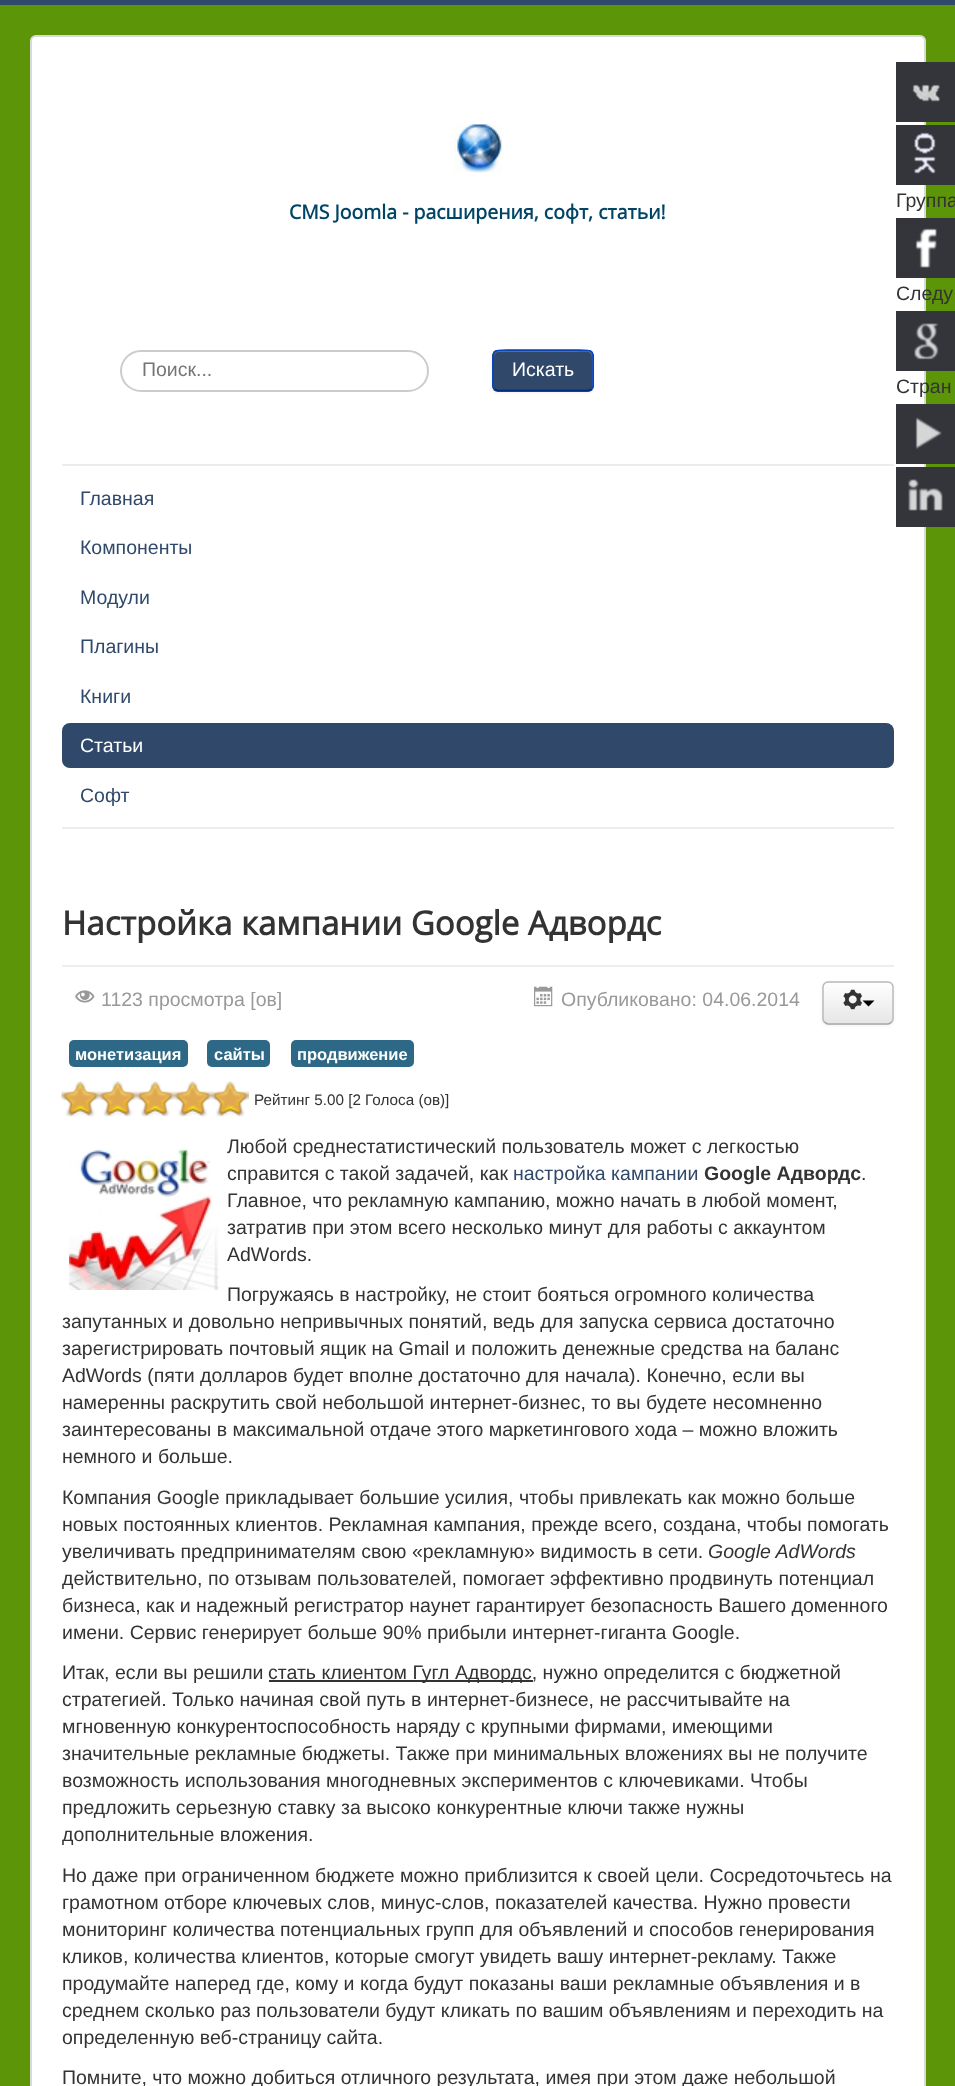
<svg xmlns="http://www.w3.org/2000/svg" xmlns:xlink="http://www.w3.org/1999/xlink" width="955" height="2086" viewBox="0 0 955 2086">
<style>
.cls-1{font:19.5px Liberation Sans;fill:#757575}
.cls-2{font:19.5px Liberation Sans;fill:#ffffff}
.cls-3{font:19.5px Liberation Sans;fill:#333333}
.cls-4{font:bold 19.5px Open Sans;fill:#004466}
.cls-5{font:19.5px Liberation Sans;fill:#30496b}
.cls-6{font:bold 33px Open Sans;fill:#333333}
.cls-7{font:19.5px Liberation Sans;fill:#999999}
.cls-8{font:bold 16.5px Liberation Sans;fill:#ffffff}
.cls-9{font:15.25px Liberation Sans;fill:#333333}
.cls-10{font:bold 19.5px Liberation Sans;fill:#333333}
.cls-11{font:italic 19.5px Liberation Sans;fill:#333333}
</style>
<defs>
<clipPath id="clip1"><rect x="822" y="981" width="72" height="44" rx="6"/></clipPath>
<linearGradient id="g1" gradientUnits="userSpaceOnUse" x1="858" y1="983" x2="858" y2="1023"><stop offset="0" stop-color="#ffffff"/><stop offset="1" stop-color="#e6e6e6"/></linearGradient>
</defs>
<rect width="100%" height="100%" fill="#5c9508"/>
<rect fill="#30496b" x="0" y="0" width="955" height="5"/>
<rect fill="#ffffff" x="30" y="35" width="896" height="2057" rx="6"/>
<rect fill="none" stroke="#000000" stroke-opacity="0.15" stroke-width="2" x="31" y="36" width="894" height="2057" rx="5"/>
<rect fill="none" stroke="#cccccc" stroke-width="2" x="121" y="351" width="307" height="40" rx="20"/>
<rect fill="#000000" fill-opacity="0.05" filter="blur(1.5px)" x="492" y="351" width="102" height="42" rx="6"/>
<rect fill="#30496b" x="492" y="350" width="102" height="42" rx="6"/>
<path fill="#596d89" d="M498 352H573C593 352 592 349 592 367V388C593 387 593 386 593 385V356C593 353 591 351 588 351H499C496 351 494 353 494 356V357C494 355 496 352 498 352Z"/>
<path fill="none" stroke="#002a80" stroke-width="1.5" d="M591.5 389L588.5 390.5H497.5L494.5 389"/>
<path fill="none" stroke="#0044cc" stroke-width="1.5" d="M494.5 389C492 387 493 383.5 493 380.5V370.5C493 348 489.5 350 513 350H573C596.5 350 593 348 593 370.5V380.5C593 383.5 594 387 591.5 389"/>
<rect fill="#33353b" x="896" y="62" width="59" height="60"/>
<image xlink:href="image0.png" x="912" y="84" width="28" height="18"/>
<rect fill="#33353b" x="896" y="125" width="59" height="60"/>
<image xlink:href="image1.png" x="914" y="132" width="22" height="42"/>
<rect fill="#33353b" x="896" y="218" width="59" height="60"/>
<image xlink:href="image2.png" x="915" y="228" width="22" height="40"/>
<rect fill="#33353b" x="896" y="311" width="59" height="60"/>
<image xlink:href="image3.png" x="914" y="323" width="25" height="37"/>
<rect fill="#33353b" x="896" y="404" width="59" height="60"/>
<image xlink:href="image4.png" x="915" y="417" width="27" height="33"/>
<rect fill="#33353b" x="896" y="467" width="59" height="60"/>
<image xlink:href="image5.png" x="908" y="479" width="35" height="32"/>
<image xlink:href="image6.png" x="454" y="124" width="48" height="49"/>
<rect fill="#ececec" x="62" y="464" width="832" height="2"/>
<rect fill="#ececec" x="62" y="827" width="832" height="2"/>
<rect fill="#30496b" x="62" y="723" width="832" height="45" rx="8"/>
<rect fill="#eeeeee" x="62" y="965" width="832" height="2"/>
<image xlink:href="image7.png" x="75" y="990" width="20" height="13"/>
<image xlink:href="image8.png" x="534" y="986" width="19" height="21"/>
<rect fill="#000000" fill-opacity="0.05" filter="blur(1.5px)" x="822" y="983" width="72" height="43" rx="6"/>
<rect fill="#f5f5f5" x="822" y="981" width="72" height="44" rx="6"/>
<g clip-path="url(#clip1)">
<rect fill="url(#g1)" x="822" y="983" width="72" height="40"/>
</g>
<path fill="#ffffff" fill-opacity="0.2" d="M828 984H878C880 984 891 982 892 987V1021C893 1020 893 1019 893 1018V988C893 985 891 983 888 983H829C826 983 824 985 824 988C824 986 826 984 828 984Z"/>
<path fill="none" stroke="#a2a2a2" stroke-width="1.5" d="M891.5 1022C890.5 1023 889.5 1024 888 1024H828C826.5 1024 825.5 1023 824.5 1022"/>
<path fill="none" stroke="#bbbbbb" stroke-width="1.5" d="M824.5 1022C823.5 1021 823 1020 823 1018.5V987C823 985.5 823.5 984.5 824.5 983.5C825.5 982.5 826.5 982 828 982H888C889.5 982 890.5 982.5 891.5 983.5C892.5 984.5 893 985.5 893 987V1018.5C893 1020 892.5 1021 891.5 1022"/>
<image xlink:href="image9.png" x="843" y="989" width="20" height="21"/>
<path fill="#000000" d="M862.5 1000.5H874.5L868.5 1006.5Z"/>
<rect fill="#2d6987" x="69" y="1040" width="119" height="27" rx="5"/>
<rect fill="#2d6987" x="207" y="1040" width="63" height="27" rx="5"/>
<rect fill="#2d6987" x="291" y="1040" width="123" height="27" rx="5"/>
<image xlink:href="image10.png" x="61" y="1081" width="188" height="36"/>
<image xlink:href="image11.png" x="61" y="1081" width="188" height="36"/>
<image xlink:href="image12.png" x="69" y="1148" width="150" height="142"/>
<rect fill="#333333" x="269" y="1680" width="264" height="2"/>
<text class="cls-1" x="142" y="376">Поиск...</text>
<text class="cls-2" x="512" y="376">Искать</text>
<text class="cls-3" x="896" y="207">Группа</text>
<text class="cls-3" x="896" y="300">Следу</text>
<text class="cls-3" x="896" y="393">Стран</text>
<text class="cls-4" x="289" y="219">CMS Joomla - расширения, софт, статьи!</text>
<text class="cls-5" x="80" y="505">Главная</text>
<text class="cls-5" x="80" y="554">Компоненты</text>
<text class="cls-5" x="80" y="604">Модули</text>
<text class="cls-5" x="80" y="653">Плагины</text>
<text class="cls-5" x="80" y="703">Книги</text>
<text class="cls-2" x="80" y="752">Статьи</text>
<text class="cls-5" x="80" y="802">Софт</text>
<text class="cls-6" x="62" y="935">Настройка кампании Google Адвордс</text>
<text class="cls-7" x="101" y="1006">1123 просмотра [ов]</text>
<text class="cls-7" x="561" y="1006">Опубликовано: 04.06.2014</text>
<text class="cls-8" x="75" y="1060">монетизация</text>
<text class="cls-8" x="214" y="1060">сайты</text>
<text class="cls-8" x="297" y="1060">продвижение</text>
<text class="cls-9" x="254" y="1105">Рейтинг 5.00 [2 Голоса (ов)]</text>
<text class="cls-3"><tspan x="227" y="1153">Любой среднестатистический пользователь может с легкостью</tspan><tspan x="227" y="1180">справится с такой задачей, как</tspan></text>
<text class="cls-5" x="513" y="1180">настройка кампании</text>
<text class="cls-10" x="704" y="1180">Google Адвордс</text>
<text class="cls-3" x="861" y="1180">.</text>
<text class="cls-3"><tspan x="227" y="1207">Главное, что рекламную кампанию, можно начать в любой момент,</tspan><tspan x="227" y="1234">затратив при этом всего несколько минут для работы с аккаунтом</tspan><tspan x="227" y="1261">AdWords.</tspan></text>
<text class="cls-3" x="227" y="1301">Погружаясь в настройку, не стоит бояться огромного количества</text>
<text class="cls-3"><tspan x="62" y="1328">запутанных и довольно непривычных понятий, ведь для запуска сервиса достаточно</tspan><tspan x="62" y="1355">зарегистрировать почтовый ящик на Gmail и положить денежные средства на баланс</tspan><tspan x="62" y="1382">AdWords (пяти долларов будет вполне достаточно для начала). Конечно, если вы</tspan><tspan x="62" y="1409">намеренны раскрутить свой небольшой интернет-бизнес, то вы будете несомненно</tspan><tspan x="62" y="1436">заинтересованы в максимальной отдаче этого маркетингового хода – можно вложить</tspan><tspan x="62" y="1463">немного и больше.</tspan></text>
<text class="cls-3"><tspan x="62" y="1504">Компания Google прикладывает большие усилия, чтобы привлекать как можно больше</tspan><tspan x="62" y="1531">новых постоянных клиентов. Рекламная кампания, прежде всего, создана, чтобы помогать</tspan><tspan x="62" y="1558">увеличивать предпринимателям свою «рекламную» видимость в сети.</tspan></text>
<text class="cls-11" x="708" y="1558">Google AdWords</text>
<text class="cls-3"><tspan x="62" y="1585">действительно, по отзывам пользователей, помогает эффективно продвинуть потенциал</tspan><tspan x="62" y="1612">бизнеса, как и надежный регистратор наунет гарантирует безопасность Вашего доменного</tspan><tspan x="62" y="1639">имени. Сервис генерирует больше 90% прибыли интернет-гиганта Google.</tspan></text>
<text class="cls-3" x="62" y="1679">Итак, если вы решили</text>
<text class="cls-3" x="268" y="1679">стать клиентом Гугл Адвордс, нужно определится с бюджетной</text>
<text class="cls-3"><tspan x="62" y="1706">стратегией. Только начиная свой путь в интернет-бизнесе, не рассчитывайте на</tspan><tspan x="62" y="1733">мгновенную конкурентоспособность наряду с крупными фирмами, имеющими</tspan><tspan x="62" y="1760">значительные рекламные бюджеты. Также при минимальных вложениях вы не получите</tspan><tspan x="62" y="1787">возможность использования многодневных экспериментов с ключевиками. Чтобы</tspan><tspan x="62" y="1814">предложить серьезную ставку за высоко конкурентные ключи также нужны</tspan><tspan x="62" y="1841">дополнительные вложения.</tspan></text>
<text class="cls-3"><tspan x="62" y="1882">Но даже при ограниченном бюджете можно приблизится к своей цели. Сосредоточьтесь на</tspan><tspan x="62" y="1909">грамотном отборе ключевых слов, минус-слов, показателей качества. Нужно провести</tspan><tspan x="62" y="1936">мониторинг количества потенциальных групп для объявлений и способов генерирования</tspan><tspan x="62" y="1963">кликов, количества клиентов, которые смогут увидеть вашу интернет-рекламу. Также</tspan><tspan x="62" y="1990">продумайте наперед где, кому и когда будут показаны ваши рекламные объявления и в</tspan><tspan x="62" y="2017">среднем сколько раз пользователи будут кликать по вашим объявлениям и переходить на</tspan><tspan x="62" y="2044">определенную веб-страницу сайта.</tspan></text>
<text class="cls-3" x="62" y="2084">Помните, что можно добиться отличного результата, имея при этом даже небольшой</text>
</svg>
